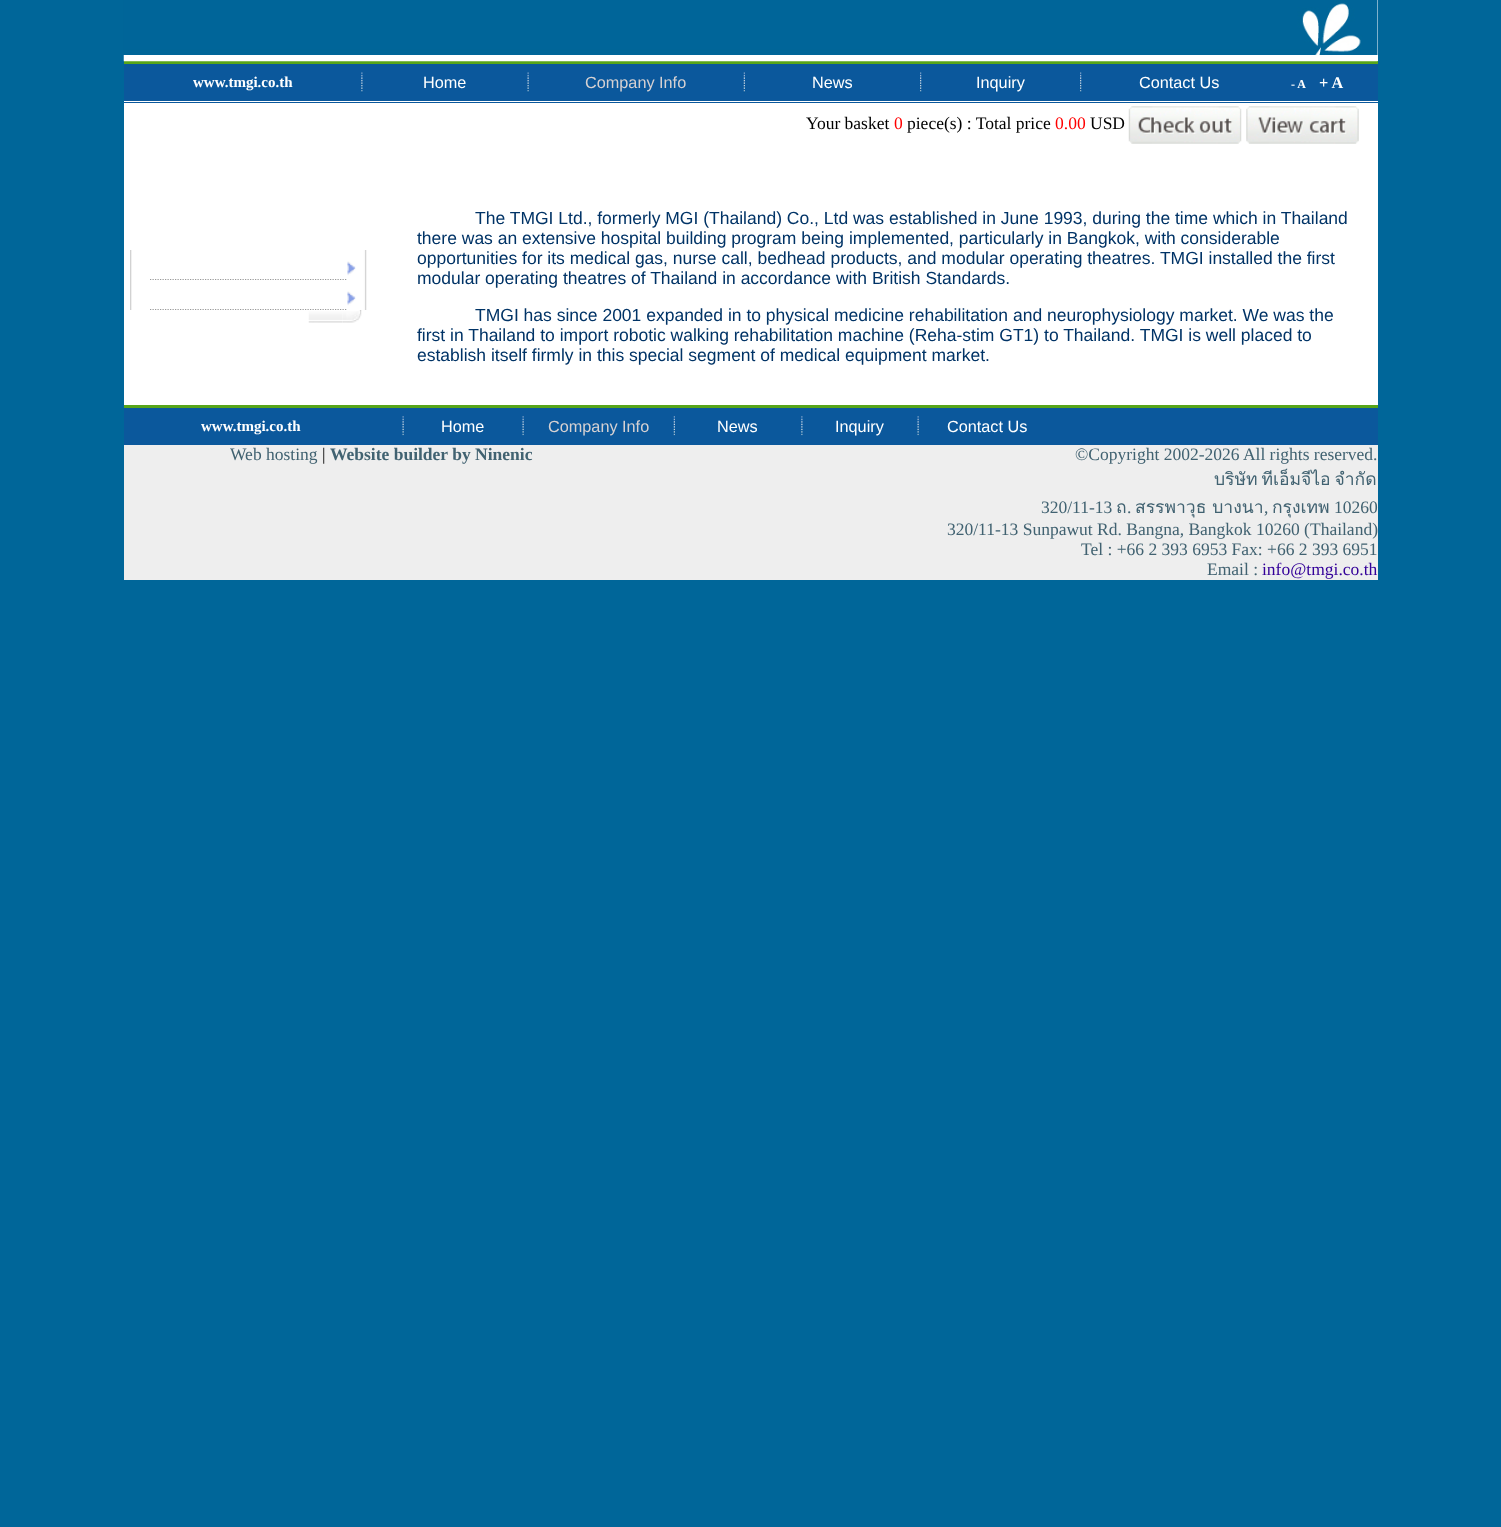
<svg xmlns="http://www.w3.org/2000/svg" xmlns:xlink="http://www.w3.org/1999/xlink" width="1501" height="1527" viewBox="0 0 1501 1527">
<style>
.cls-1{font:bold 15px Liberation Serif;fill:#ffffff}
.cls-2{font:16.25px Liberation Sans;fill:#ffffff}
.cls-3{font:16.25px Liberation Sans;fill:#d6d1d2}
.cls-4{font:bold 12px Liberation Serif;fill:#ffffff}
.cls-5{font:bold 16.25px Liberation Serif;fill:#ffffff}
.cls-6{font:17.5px Liberation Serif;fill:#000000}
.cls-7{font:17.5px Liberation Serif;fill:#ff0000}
.cls-8{font:17.5px Liberation Sans;fill:#003366}
.cls-9{font:17.5px Liberation Serif;fill:#416271}
.cls-10{font:bold 17.5px Liberation Serif;fill:#416271}
.cls-11{font:17.5px Loma;fill:#416271}
.cls-12{font:17.5px Liberation Serif;fill:#330099}
</style>
<rect width="100%" height="100%" fill="#006699"/>
<rect fill="#ffffff" x="1377" y="0" width="1" height="61"/>
<rect fill="#58a519" x="124" y="61" width="1254" height="3"/>
<image xlink:href="image0.png" x="123" y="0" width="1255" height="62"/>
<rect fill="#0b589c" x="124" y="64" width="1254" height="39"/>
<rect fill="#ffffff" x="124" y="101" width="1254" height="1"/>
<image xlink:href="image1.png" x="361" y="72" width="2" height="21"/>
<image xlink:href="image2.png" x="527" y="72" width="2" height="21"/>
<image xlink:href="image3.png" x="743" y="72" width="2" height="21"/>
<image xlink:href="image4.png" x="920" y="72" width="2" height="21"/>
<image xlink:href="image4.png" x="1080" y="72" width="2" height="21"/>
<rect fill="#ffffff" x="124" y="103" width="1254" height="302"/>
<image xlink:href="image5.png" x="130" y="250" width="2" height="30"/>
<path fill="none" stroke="#999999" stroke-width="1.2" stroke-dasharray="1.25 1.25" d="M150 279.5H347.5"/>
<image xlink:href="image6.png" x="347" y="250" width="20" height="30"/>
<image xlink:href="image5.png" x="130" y="280" width="2" height="30"/>
<path fill="none" stroke="#999999" stroke-width="1.2" stroke-dasharray="1.25 1.25" d="M150 309.5H347.5"/>
<image xlink:href="image7.png" x="347" y="280" width="20" height="30"/>
<image xlink:href="image8.png" x="308" y="310" width="35" height="13"/>
<image xlink:href="image9.png" x="342" y="310" width="20" height="13"/>
<image xlink:href="image10.png" x="1128" y="106" width="114" height="38"/>
<image xlink:href="image11.png" x="1246" y="106" width="113" height="38"/>
<rect fill="#0b589c" x="124" y="408" width="1254" height="37"/>
<rect fill="#58a519" x="124" y="405" width="1254" height="3"/>
<image xlink:href="image12.png" x="402" y="416" width="2" height="20"/>
<image xlink:href="image12.png" x="522" y="416" width="2" height="20"/>
<image xlink:href="image13.png" x="673" y="416" width="2" height="20"/>
<image xlink:href="image14.png" x="801" y="416" width="2" height="20"/>
<image xlink:href="image12.png" x="917" y="416" width="2" height="20"/>
<rect fill="#eeeeee" x="124" y="445" width="1254" height="135"/>
<text class="cls-1" x="193" y="87">www.tmgi.co.th</text>
<text class="cls-2" x="423" y="88">Home</text>
<text class="cls-3" x="585" y="88">Company Info</text>
<text class="cls-2" x="812" y="88">News</text>
<text class="cls-2" x="976" y="88">Inquiry</text>
<text class="cls-2" x="1139" y="88">Contact Us</text>
<text class="cls-4" x="1291" y="88">- A</text>
<text class="cls-5" x="1319" y="88">+ A</text>
<text class="cls-6" x="806" y="129">Your basket</text>
<text class="cls-7" x="894" y="129">0</text>
<text class="cls-6" x="907" y="129">piece(s) : Total price</text>
<text class="cls-7" x="1055" y="129">0.00</text>
<text class="cls-6" x="1090" y="129">USD</text>
<text class="cls-8" x="475" y="224">The TMGI Ltd., formerly MGI (Thailand) Co., Ltd was established in June 1993, during the time which in Thailand</text>
<text class="cls-8"><tspan x="417" y="244">there was an extensive hospital building program being implemented, particularly in Bangkok, with considerable</tspan><tspan x="417" y="264">opportunities for its medical gas, nurse call, bedhead products, and modular operating theatres. TMGI installed the first</tspan><tspan x="417" y="284">modular operating theatres of Thailand in accordance with British Standards.</tspan></text>
<text class="cls-8" x="475" y="321">TMGI has since 2001 expanded in to physical medicine rehabilitation and neurophysiology market. We was the</text>
<text class="cls-8"><tspan x="417" y="341">first in Thailand to import robotic walking rehabilitation machine (Reha-stim GT1) to Thailand. TMGI is well placed to</tspan><tspan x="417" y="361">establish itself firmly in this special segment of medical equipment market.</tspan></text>
<text class="cls-1" x="201" y="431">www.tmgi.co.th</text>
<text class="cls-2" x="441" y="432">Home</text>
<text class="cls-3" x="548" y="432">Company Info</text>
<text class="cls-2" x="717" y="432">News</text>
<text class="cls-2" x="835" y="432">Inquiry</text>
<text class="cls-2" x="947" y="432">Contact Us</text>
<text class="cls-9" x="230" y="460">Web hosting</text>
<text class="cls-6" x="322" y="460">|</text>
<text class="cls-10" x="330" y="460">Website builder by Ninenic</text>
<text class="cls-9" x="1075" y="460">©Copyright 2002-2026 All rights reserved.</text>
<text class="cls-11" x="1214" y="485" word-spacing="-2">บริษัท ทีเอ็มจีไอ จำกัด</text>
<text class="cls-9" x="1041" y="513">320/11-13</text>
<text class="cls-11" x="1116" y="513">ถ</text>
<text class="cls-9" x="1127" y="513">.</text>
<text class="cls-11" x="1135" y="513">สรรพาวุธ บางนา</text>
<text class="cls-9" x="1264" y="513">,</text>
<text class="cls-11" x="1272" y="513">กรุงเทพ</text>
<text class="cls-9" x="1334" y="513">10260</text>
<text class="cls-9" x="947" y="535">320/11-13 Sunpawut Rd. Bangna, Bangkok 10260 (Thailand)</text>
<text class="cls-9" x="1081" y="555">Tel : +66 2 393 6953 Fax: +66 2 393 6951</text>
<text class="cls-9" x="1207" y="575">Email :</text>
<text class="cls-12" x="1262" y="575">info@tmgi.co.th</text>
</svg>
